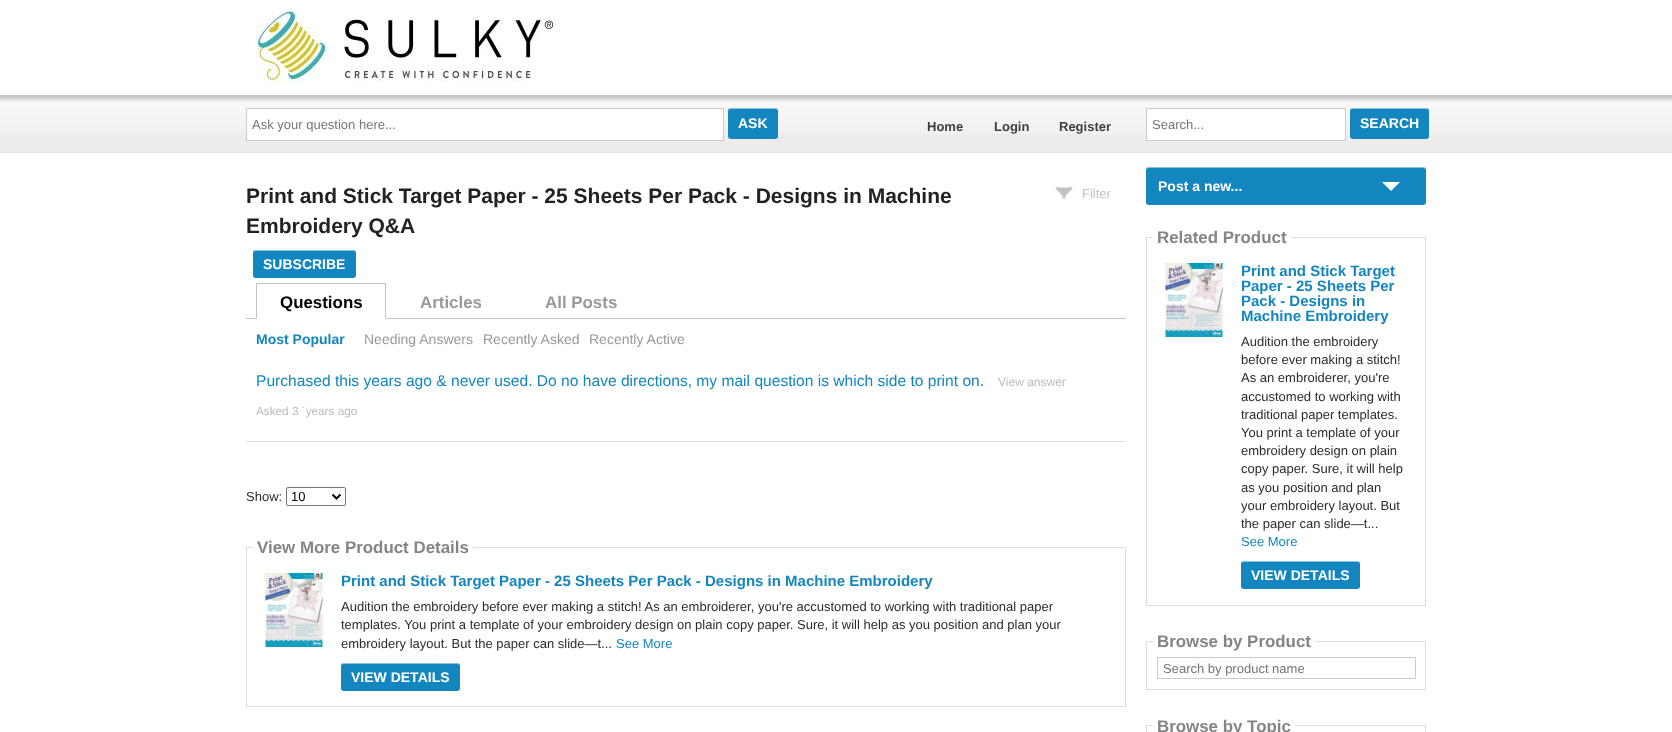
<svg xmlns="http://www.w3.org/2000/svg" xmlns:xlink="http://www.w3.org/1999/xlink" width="1672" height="732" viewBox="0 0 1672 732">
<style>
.cls-1{font:13px Liberation Sans;fill:#757575}
.cls-2{font:bold 14px Liberation Sans;fill:#ffffff}
.cls-3{font:bold 13px Liberation Sans;fill:#3f3f40}
.cls-4{font:bold 21px Liberation Sans;fill:#222222}
.cls-5{font:13px Liberation Sans;fill:#c3c1c1}
.cls-6{font:bold 16.9px Liberation Sans;fill:#000000}
.cls-7{font:bold 16.9px Liberation Sans;fill:#999999}
.cls-8{font:bold 14px Liberation Sans;fill:#1386bf}
.cls-9{font:14px Liberation Sans;fill:#999999}
.cls-10{font:15.6px Liberation Sans;fill:#1386bf}
.cls-11{font:12px Liberation Sans;fill:#bababa}
.cls-12{font:11.75px Liberation Sans;fill:#bababa}
.cls-13{font:13px Liberation Sans;fill:#282b30}
.cls-14{font:13px Liberation Sans;fill:#000000}
.cls-15{font:bold 16.9px Liberation Sans;fill:#858585}
.cls-16{font:bold 15px Liberation Sans;fill:#1386bf}
.cls-17{font:13px Liberation Sans;fill:#1386bf}
</style>
<rect width="100%" height="100%" fill="#ffffff"/>
<image xlink:href="image0.png" x="256" y="10" width="300" height="72"/>
<rect fill="#ececec" x="0" y="134" width="1672" height="18"/>
<image xlink:href="image1.png" x="0" y="95" width="1672" height="39"/>
<rect fill="#e6e6e6" x="0" y="152" width="1672" height="1"/>
<rect fill="#ffffff" stroke="#cccccc" x="246.5" y="108.5" width="477" height="32"/>
<rect fill="#1386bf" x="728" y="108" width="50" height="31" rx="3"/>
<path fill="#ffffff" fill-opacity="0.5" d="M731 109H775C777 109 778 110 778 112C778 106 772 108 768 108H738C734 108 728 106 728 112C728 110 729 109 731 109Z"/>
<rect fill="#ffffff" stroke="#cccccc" x="1146.5" y="108.5" width="199" height="32"/>
<rect fill="#1386bf" x="1350" y="108" width="79" height="31" rx="3"/>
<path fill="#ffffff" fill-opacity="0.5" d="M1353 109H1426C1428 109 1429 110 1429 112C1429 105 1418 108 1414 108H1365C1361 108 1350 105 1350 112C1350 110 1351 109 1353 109Z"/>
<rect fill="#1386bf" x="253" y="250" width="103" height="28" rx="3"/>
<path fill="#ffffff" fill-opacity="0.5" d="M256 251H353C355 251 356 252 356 254C356 246 340 250 337 250H272C269 250 253 246 253 254C253 252 254 251 256 251Z"/>
<image xlink:href="image2.png" x="1055" y="187" width="19" height="12"/>
<rect fill="#c4c4c4" x="256" y="283" width="130" height="1"/>
<rect fill="#c4c4c4" x="385" y="283" width="1" height="36"/>
<rect fill="#ffffff" x="385" y="318" width="1" height="1"/>
<rect fill="#c4c4c4" x="256" y="283" width="1" height="36"/>
<rect fill="#c4c4c4" x="386" y="318" width="740" height="1"/>
<rect fill="#c4c4c4" x="246" y="318" width="10" height="1"/>
<rect fill="#dddddd" x="246" y="441" width="880" height="1"/>
<rect fill="none" stroke="#767676" x="286.5" y="487.5" width="59" height="18" rx="1.5"/>
<path fill="none" stroke="#000000" stroke-width="2" d="M332.5 494.5L336.5 498.5L340.5 494.5"/>
<rect fill="none" stroke="#dddddd" x="246.5" y="547.5" width="879" height="159"/>
<rect fill="#ffffff" x="253" y="547" width="220" height="1"/>
<image xlink:href="image3.png" x="264" y="573" width="60" height="74"/>
<rect fill="#1386bf" x="341" y="663" width="119" height="28" rx="3"/>
<path fill="#ffffff" fill-opacity="0.5" d="M344 664H457C459 664 460 665 460 667C460 665 459 663 457 663H363C362 663 341 658 341 667C341 665 342 664 344 664Z"/>
<rect fill="#1386bf" x="1146" y="167" width="280" height="38" rx="3"/>
<path fill="#ffffff" fill-opacity="0.5" d="M1149 168H1423C1425 168 1426 169 1426 171V170C1426 168 1425 167 1423 167H1149C1147 167 1146 168 1146 170V171C1146 169 1147 168 1149 168Z"/>
<path fill="#ffffff" d="M1382 182H1400L1391 191Z"/>
<rect fill="none" stroke="#dddddd" x="1146.5" y="237.5" width="279" height="368"/>
<rect fill="#ffffff" x="1153" y="237" width="138" height="1"/>
<image xlink:href="image4.png" x="1164" y="263" width="60" height="74"/>
<rect fill="#1386bf" x="1241" y="561" width="119" height="28" rx="3"/>
<path fill="#ffffff" fill-opacity="0.5" d="M1244 562H1357C1359 562 1360 563 1360 565C1360 563 1359 561 1357 561H1263C1262 561 1241 556 1241 565C1241 563 1242 562 1244 562Z"/>
<rect fill="none" stroke="#dddddd" x="1146.5" y="641.5" width="279" height="48"/>
<rect fill="#ffffff" x="1153" y="641" width="162" height="1"/>
<rect fill="none" stroke="#cccccc" x="1157.5" y="657.5" width="258" height="21"/>
<rect fill="none" stroke="#dddddd" x="1146.5" y="725.5" width="279" height="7"/>
<rect fill="#ffffff" x="1153" y="725" width="142" height="1"/>
<text class="cls-1" x="252" y="129">Ask your question here...</text>
<text class="cls-2" x="738" y="128">ASK</text>
<text class="cls-3" x="927" y="131">Home</text>
<text class="cls-3" x="994" y="131">Login</text>
<text class="cls-3" x="1059" y="131">Register</text>
<text class="cls-1" x="1152" y="129">Search...</text>
<text class="cls-2" x="1360" y="128">SEARCH</text>
<text class="cls-4"><tspan x="246" y="203">Print and Stick Target Paper - 25 Sheets Per Pack - Designs in Machine</tspan><tspan x="246" y="233">Embroidery Q&amp;A</tspan></text>
<text class="cls-2" x="263" y="269">SUBSCRIBE</text>
<text class="cls-5" x="1082" y="198">Filter</text>
<text class="cls-6" x="280" y="308">Questions</text>
<text class="cls-7" x="420" y="308">Articles</text>
<text class="cls-7" x="545" y="308">All Posts</text>
<text class="cls-8" x="256" y="344">Most Popular</text>
<text class="cls-9" x="364" y="344">Needing Answers</text>
<text class="cls-9" x="483" y="344">Recently Asked</text>
<text class="cls-9" x="589" y="344">Recently Active</text>
<text class="cls-10" x="256" y="386">Purchased this years ago &amp; never used. Do no have directions, my mail question is which side to print on.</text>
<text class="cls-11" x="998" y="386">View answer</text>
<text class="cls-12" x="256" y="415">Asked 3 ´years ago</text>
<text class="cls-13" x="246" y="501">Show:</text>
<text class="cls-14" x="291" y="501">10</text>
<text class="cls-15" x="257" y="553">View More Product Details</text>
<text class="cls-16" x="341" y="586">Print and Stick Target Paper - 25 Sheets Per Pack - Designs in Machine Embroidery</text>
<text class="cls-13"><tspan x="341" y="611">Audition the embroidery before ever making a stitch! As an embroiderer, you're accustomed to working with traditional paper</tspan><tspan x="341" y="629">templates. You print a template of your embroidery design on plain copy paper. Sure, it will help as you position and plan your</tspan><tspan x="341" y="648">embroidery layout. But the paper can slide—t...</tspan></text>
<text class="cls-17" x="616" y="648">See More</text>
<text class="cls-2" x="351" y="682">VIEW DETAILS</text>
<text class="cls-2" x="1158" y="191">Post a new...</text>
<text class="cls-15" x="1157" y="243">Related Product</text>
<text class="cls-16"><tspan x="1241" y="276">Print and Stick Target</tspan><tspan x="1241" y="291">Paper - 25 Sheets Per</tspan><tspan x="1241" y="306">Pack - Designs in</tspan><tspan x="1241" y="321">Machine Embroidery</tspan></text>
<text class="cls-13"><tspan x="1241" y="346">Audition the embroidery</tspan><tspan x="1241" y="364">before ever making a stitch!</tspan><tspan x="1241" y="382">As an embroiderer, you're</tspan><tspan x="1241" y="401">accustomed to working with</tspan><tspan x="1241" y="419">traditional paper templates.</tspan><tspan x="1241" y="437">You print a template of your</tspan><tspan x="1241" y="455">embroidery design on plain</tspan><tspan x="1241" y="473">copy paper. Sure, it will help</tspan><tspan x="1241" y="492">as you position and plan</tspan><tspan x="1241" y="510">your embroidery layout. But</tspan><tspan x="1241" y="528">the paper can slide—t...</tspan></text>
<text class="cls-17" x="1241" y="546">See More</text>
<text class="cls-2" x="1251" y="580">VIEW DETAILS</text>
<text class="cls-15" x="1157" y="647">Browse by Product</text>
<text class="cls-1" x="1163" y="673">Search by product name</text>
<text class="cls-15" x="1157" y="732">Browse by Topic</text>
</svg>
